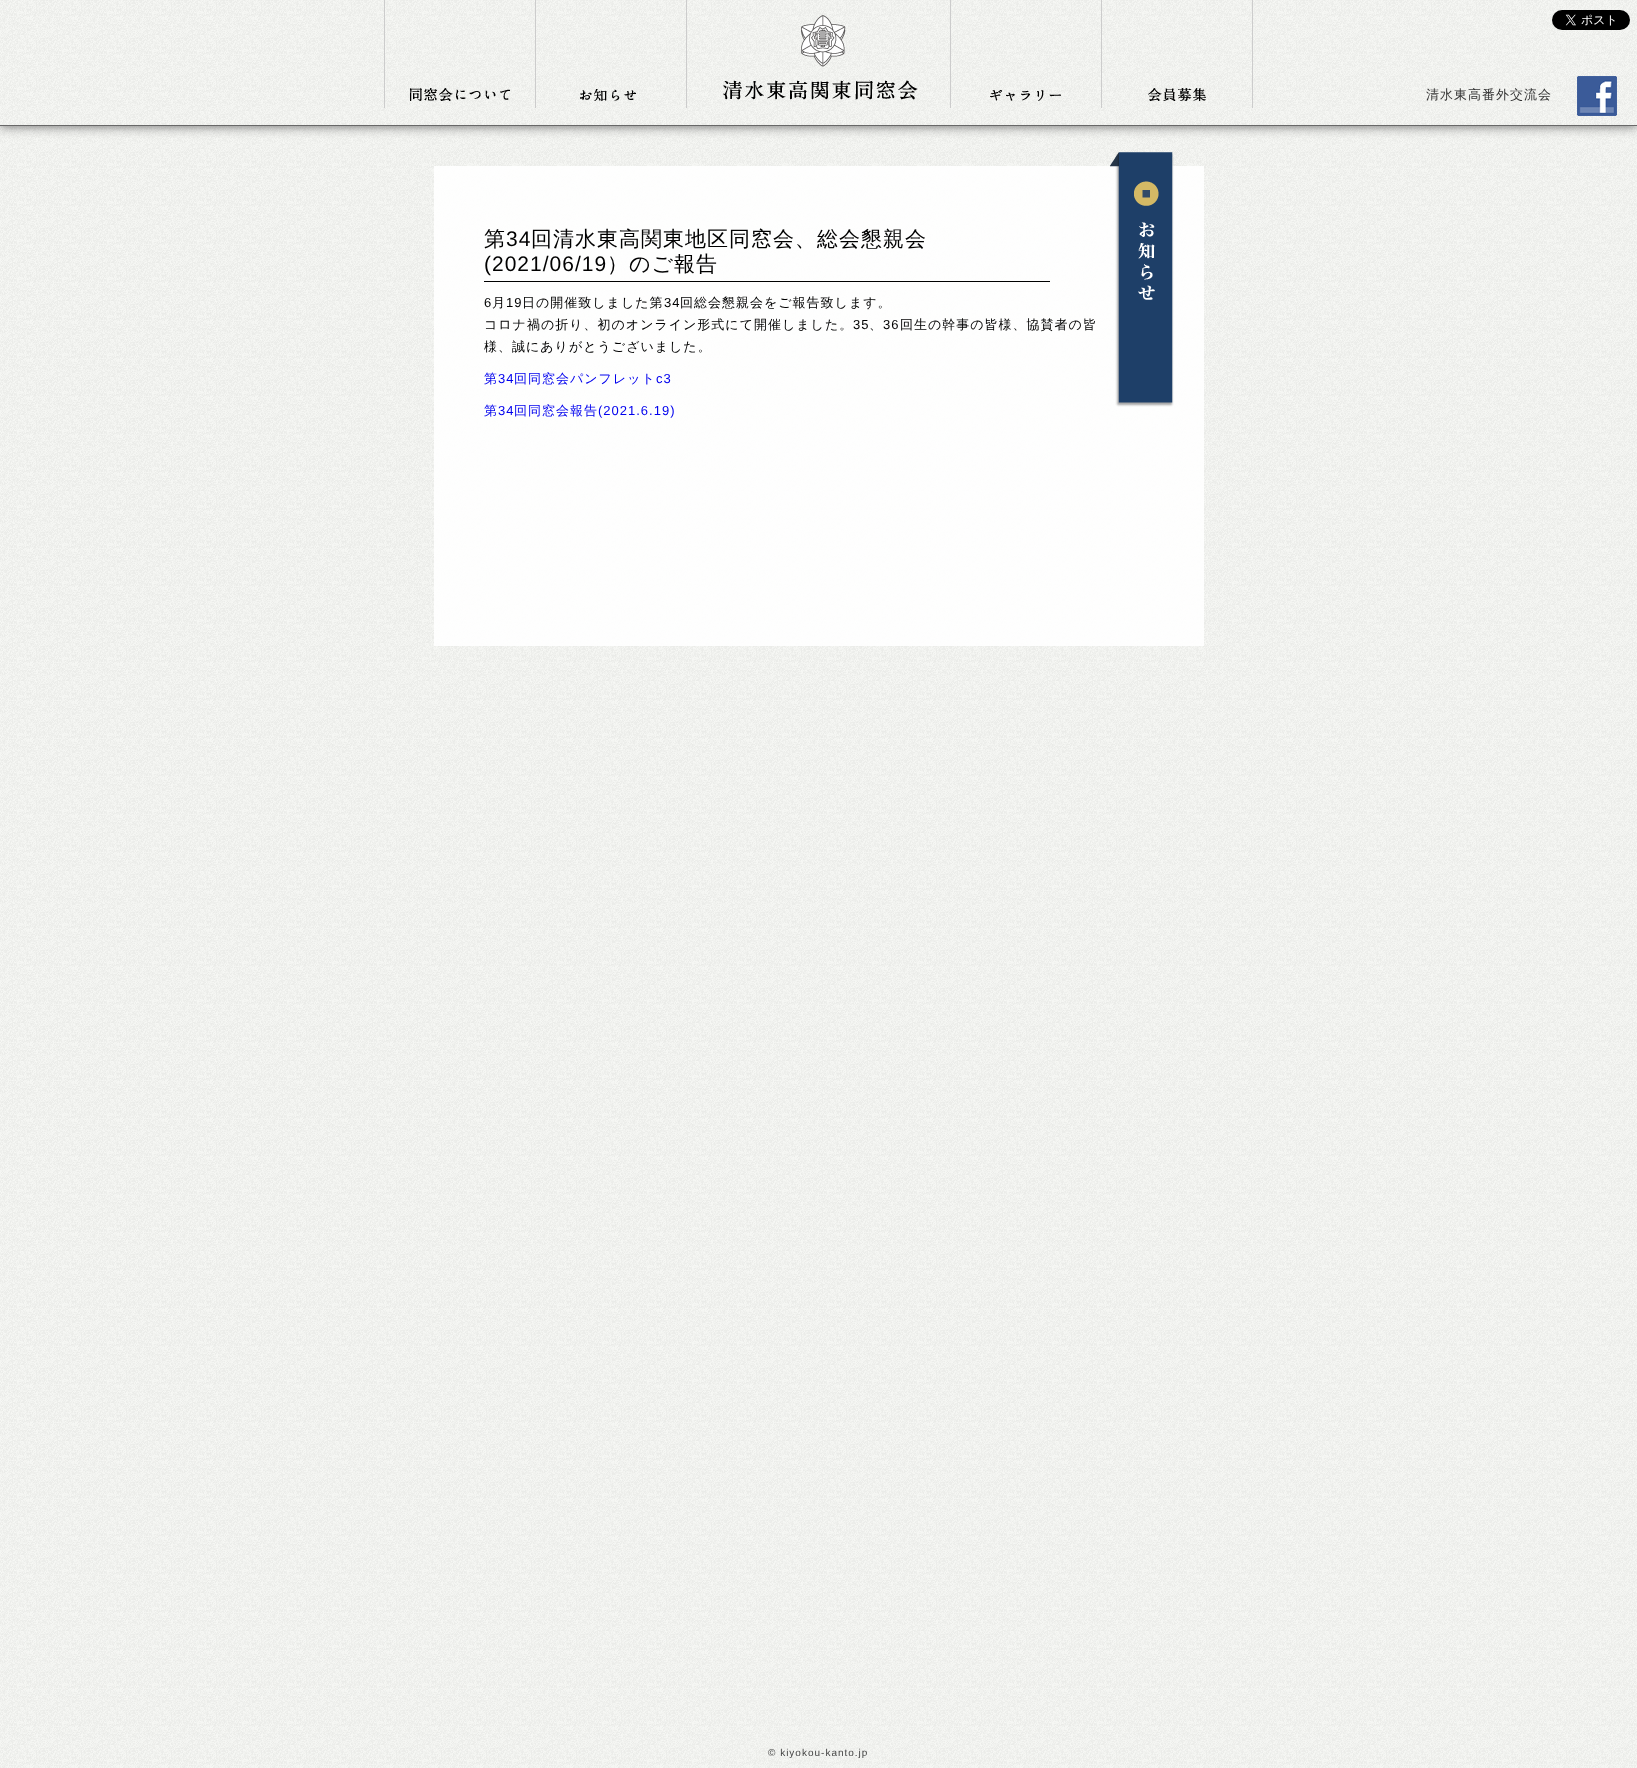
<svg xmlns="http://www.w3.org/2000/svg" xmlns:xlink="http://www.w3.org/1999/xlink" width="1637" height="1768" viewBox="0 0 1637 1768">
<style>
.cls-1{font:500 13px WenQuanYi Zen Hei;letter-spacing:1px;fill:#333333}
.cls-2{font:500 21px WenQuanYi Zen Hei;letter-spacing:1px;fill:#000000}
.cls-3{font:21px Liberation Sans;letter-spacing:1px;fill:#000000}
.cls-4{font:13px Liberation Sans;letter-spacing:1px;fill:#000000}
.cls-5{font:500 13px WenQuanYi Zen Hei;letter-spacing:1px;fill:#000000}
.cls-6{font:500 13px WenQuanYi Zen Hei;letter-spacing:1px;fill:#0000ee}
.cls-7{font:13px Liberation Sans;letter-spacing:1px;fill:#0000ee}
.cls-8{font:10px Liberation Sans;letter-spacing:1px;fill:#444444}
</style>
<defs>
<clipPath id="clip1"><rect x="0" y="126" width="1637" height="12"/></clipPath>
</defs>
<rect width="100%" height="100%" fill="#ffffff"/>
<image xlink:href="image0.png" x="0" y="0" width="1637" height="1768"/>
<g clip-path="url(#clip1)">
<rect fill="#666666" filter="blur(6px)" x="0" y="0" width="1637" height="126"/>
</g>
<rect fill="#686868" x="0" y="125" width="1637" height="1"/>
<rect fill="#cccccc" x="535" y="0" width="1" height="108"/>
<rect fill="#cccccc" x="384" y="0" width="1" height="108"/>
<image xlink:href="image1.png" x="410" y="88" width="100" height="13"/>
<rect fill="#cccccc" x="686" y="0" width="1" height="108"/>
<image xlink:href="image2.png" x="580" y="89" width="56" height="12"/>
<rect fill="#cccccc" x="950" y="0" width="1" height="108"/>
<image xlink:href="image3.png" x="723" y="15" width="195" height="85"/>
<rect fill="#cccccc" x="1101" y="0" width="1" height="108"/>
<image xlink:href="image4.png" x="990" y="90" width="71" height="11"/>
<rect fill="#cccccc" x="1252" y="0" width="1" height="108"/>
<image xlink:href="image5.png" x="1148" y="88" width="58" height="13"/>
<image xlink:href="image6.png" x="1552" y="10" width="78" height="20"/>
<image xlink:href="image7.png" x="1577" y="76" width="40" height="40"/>
<rect fill="#ffffff" fill-opacity="0.9" x="434" y="166" width="770" height="480"/>
<rect fill="#000000" x="484" y="281" width="566" height="1"/>
<image xlink:href="image8.png" x="1110" y="152" width="64" height="255"/>
<text class="cls-1" x="1426" y="99">清水東高番外交流会</text>
<text class="cls-2" x="484" y="246">第</text>
<text class="cls-3" x="506" y="246">34</text>
<text class="cls-2" x="531" y="246">回清水東高関東地区同窓会、総会懇親会</text>
<text class="cls-3" x="484" y="271">(2021/06/19</text>
<text class="cls-2" x="607" y="271">）のご報告</text>
<text class="cls-4" x="484" y="307">6</text>
<text class="cls-5" x="492" y="307">月</text>
<text class="cls-4" x="506" y="307">19</text>
<text class="cls-5" x="522" y="307">日の開催致しました第</text>
<text class="cls-4" x="664" y="307">34</text>
<text class="cls-5" x="680" y="307">回総会懇親会をご報告致します。</text>
<text class="cls-5" x="484" y="329">コロナ禍の折り、初のオンライン形式にて開催しました。</text>
<text class="cls-4" x="853" y="329">35</text>
<text class="cls-5" x="869" y="329">、</text>
<text class="cls-4" x="883" y="329">36</text>
<text class="cls-5" x="900" y="329">回生の幹事の皆様、協賛者の皆</text>
<text class="cls-5" x="484" y="351">様、誠にありがとうございました。</text>
<text class="cls-6" x="484" y="383">第</text>
<text class="cls-7" x="498" y="383">34</text>
<text class="cls-6" x="514" y="383">回同窓会パンフレット</text>
<text class="cls-7" x="656" y="383">c3</text>
<text class="cls-6" x="484" y="415">第</text>
<text class="cls-7" x="498" y="415">34</text>
<text class="cls-6" x="514" y="415">回同窓会報告</text>
<text class="cls-7" x="598" y="415">(2021.6.19)</text>
<text class="cls-8" x="768" y="1756">© kiyokou-kanto.jp</text>
</svg>
